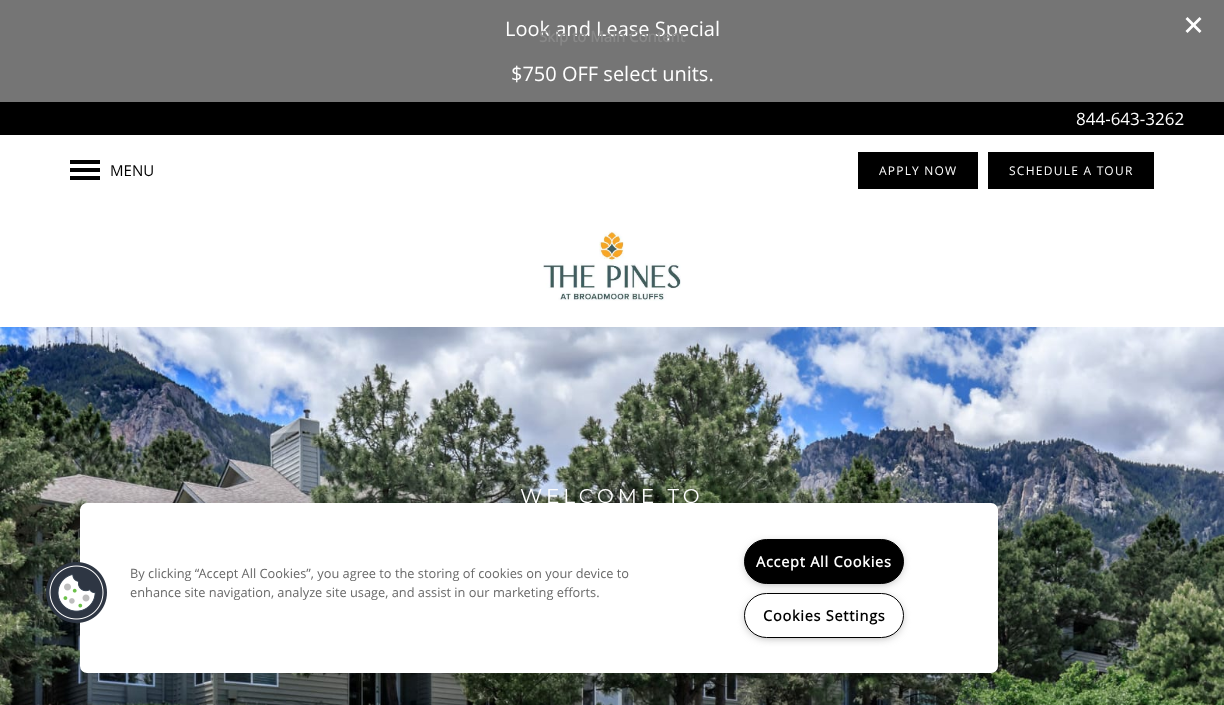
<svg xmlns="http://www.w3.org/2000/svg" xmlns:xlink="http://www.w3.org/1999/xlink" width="1224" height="705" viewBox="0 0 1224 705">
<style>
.cls-1{font:20px Open Sans;fill:#ffffff}
.cls-2{font:bold 15px Open Sans;fill:#888888}
.cls-3{font:17px Open Sans;fill:#ffffff}
.cls-4{font:15px Open Sans;fill:#000000}
.cls-5{font:12px Open Sans;letter-spacing:1.25px;fill:#ffffff}
.cls-6{font:20px Montserrat;letter-spacing:4px;fill:#ffffff}
.cls-7{font:12.8px Open Sans;fill:#696969}
.cls-8{font:bold 14.5px Open Sans;letter-spacing:0.75px;fill:#ffffff}
.cls-9{font:bold 14.5px Open Sans;letter-spacing:0.75px;fill:#000000}
</style>
<rect width="100%" height="100%" fill="#ffffff"/>
<rect fill="#757575" x="0" y="0" width="1224" height="102"/>
<path fill="#ffffff" d="M1199.5 17L1201.5 19L1187.5 33L1185.5 31Z"/>
<path fill="#ffffff" d="M1185.5 19L1187.5 17L1201.5 31L1199.5 33Z"/>
<rect fill="#000000" x="0" y="102" width="1224" height="33"/>
<rect fill="#000000" x="70" y="160" width="30" height="4"/>
<rect fill="#000000" x="70" y="168" width="30" height="4"/>
<rect fill="#000000" x="70" y="176" width="30" height="4"/>
<rect fill="#000000" x="858" y="152" width="120" height="37"/>
<rect fill="#000000" x="988" y="152" width="166" height="37"/>
<image xlink:href="image0.png" x="543" y="231" width="138" height="70"/>
<image xlink:href="image1.png" x="0" y="327" width="1224" height="378"/>
<rect fill="#000000" fill-opacity="0.2" filter="blur(9px)" x="80" y="503" width="918" height="170" rx="7"/>
<rect fill="#ffffff" x="80" y="503" width="918" height="170" rx="7"/>
<image xlink:href="image2.png" x="46" y="562" width="61" height="61"/>
<rect fill="#999999" filter="blur(5px)" x="747" y="544" width="154" height="39" rx="19.5"/>
<rect fill="#000000" stroke="#000000" x="744.5" y="539.5" width="159" height="44" rx="22"/>
<rect fill="#999999" filter="blur(5px)" x="747" y="598" width="154" height="39" rx="19.5"/>
<rect fill="#ffffff" stroke="#000000" x="744.5" y="593.5" width="159" height="44" rx="22"/>
<text class="cls-1" x="505" y="36">Look and Lease Special</text>
<text class="cls-1" x="511" y="81">$750 OFF select units.</text>
<text class="cls-2" x="539" y="42">Skip to Main Content</text>
<text class="cls-3" x="1076" y="125">844-643-3262</text>
<text class="cls-4" x="110" y="176">MENU</text>
<text class="cls-5" x="879" y="175">APPLY NOW</text>
<text class="cls-5" x="1009" y="175">SCHEDULE A TOUR</text>
<text class="cls-6" x="520" y="503">WELCOME TO</text>
<text class="cls-7"><tspan x="130" y="578">By clicking “Accept All Cookies”, you agree to the storing of cookies on your device to</tspan><tspan x="130" y="597">enhance site navigation, analyze site usage, and assist in our marketing efforts.</tspan></text>
<text class="cls-8" x="756" y="567">Accept All Cookies</text>
<text class="cls-9" x="763" y="621">Cookies Settings</text>
</svg>
